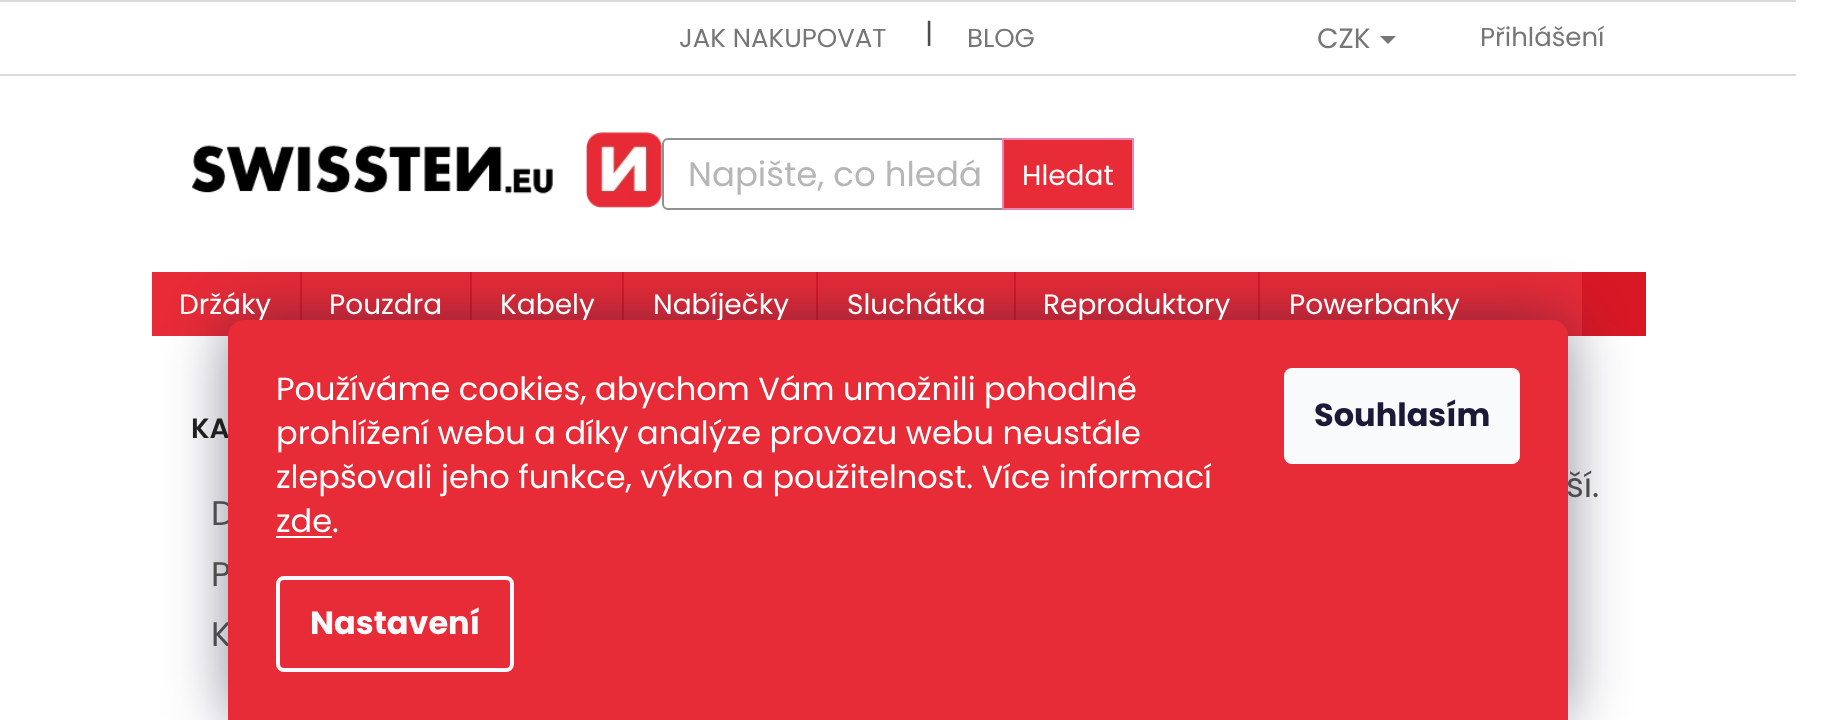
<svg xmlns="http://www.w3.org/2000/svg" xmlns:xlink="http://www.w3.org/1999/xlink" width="1825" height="720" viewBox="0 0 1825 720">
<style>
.cls-1{font:26px Poppins;fill:#767676}
.cls-2{font:28px Poppins;fill:#4d4d4d}
.cls-3{font:28px Poppins;fill:#767676}
.cls-4{font:34px Poppins;fill:#b6b6b6}
.cls-5{font:28px Poppins;fill:#ffffff}
.cls-6{font:600 28px Poppins;fill:#1f1f1f}
.cls-7{font:34px Poppins;fill:#4d4d4d}
.cls-8{font:32px Poppins;fill:#ffffff}
.cls-9{font:bold 32px Poppins;fill:#f8fafb}
.cls-10{font:bold 32px Poppins;fill:#1a1937}
</style>
<rect width="100%" height="100%" fill="#ffffff"/>
<rect fill="#dadada" x="0" y="0" width="1796" height="2"/>
<rect fill="#dadada" x="0" y="74" width="1796" height="2"/>
<path fill="#767676" d="M1380 36H1396L1388 44Z"/>
<image xlink:href="image0.png" x="192" y="132" width="470" height="76"/>
<rect fill="none" stroke="#919191" stroke-width="2" x="663" y="139" width="470" height="70" rx="5"/>
<rect fill="#e72b37" stroke="#e885b7" stroke-width="2" x="1003" y="139" width="130" height="70"/>
<rect fill="#e72b37" x="152" y="272" width="1430" height="64"/>
<rect fill="#d81825" x="300" y="272" width="2" height="48"/>
<rect fill="#d81825" x="470" y="272" width="2" height="48"/>
<rect fill="#d81825" x="622" y="272" width="2" height="48"/>
<rect fill="#d81825" x="816" y="272" width="2" height="48"/>
<rect fill="#d81825" x="1014" y="272" width="2" height="48"/>
<rect fill="#d81825" x="1258" y="272" width="2" height="48"/>
<rect fill="#d81825" x="1582" y="272" width="64" height="64"/>
<rect fill="#1b1939" fill-opacity="0.5" filter="blur(30px)" x="228" y="320" width="1340" height="400" rx="16"/>
<text class="cls-1" x="679" y="47">JAK NAKUPOVAT</text>
<text class="cls-2" x="925" y="43">|</text>
<text class="cls-1" x="967" y="47">BLOG</text>
<text class="cls-3" x="1317" y="48">CZK</text>
<text class="cls-1" x="1480" y="46">Přihlášení</text>
<text class="cls-4" x="688" y="186">Napište, co hledá</text>
<text class="cls-5" x="1022" y="185">Hledat</text>
<text class="cls-5" x="179" y="314">Držáky</text>
<text class="cls-5" x="329" y="314">Pouzdra</text>
<text class="cls-5" x="500" y="314">Kabely</text>
<text class="cls-5" x="653" y="314">Nabíječky</text>
<text class="cls-5" x="847" y="314">Sluchátka</text>
<text class="cls-5" x="1043" y="314">Reproduktory</text>
<text class="cls-5" x="1289" y="314">Powerbanky</text>
<text class="cls-6" x="191" y="438">KA</text>
<text class="cls-7"><tspan x="211" y="525">D</tspan><tspan x="211" y="586">P</tspan><tspan x="211" y="646">K</tspan></text>
<text class="cls-7" x="1566" y="497">ší.</text>
<path fill="#e72b37" d="M244 320H1552C1561 320 1568 327 1568 336V720H228V336C228 327 235 320 244 320Z"/>
<text class="cls-8"><tspan x="276" y="400">Používáme cookies, abychom Vám umožnili pohodlné</tspan><tspan x="276" y="444">prohlížení webu a díky analýze provozu webu neustále</tspan><tspan x="276" y="488">zlepšovali jeho funkce, výkon a použitelnost. Více informací</tspan><tspan x="276" y="532">zde.</tspan></text>
<rect fill="#ffffff" x="276" y="536" width="56" height="2"/>
<rect fill="none" stroke="#f8fafb" stroke-width="4" x="278" y="578" width="234" height="92" rx="6"/>
<text class="cls-9" x="310" y="634">Nastavení</text>
<rect fill="#f8fafb" x="1284" y="368" width="236" height="96" rx="8"/>
<text class="cls-10" x="1314" y="426">Souhlasím</text>
</svg>
